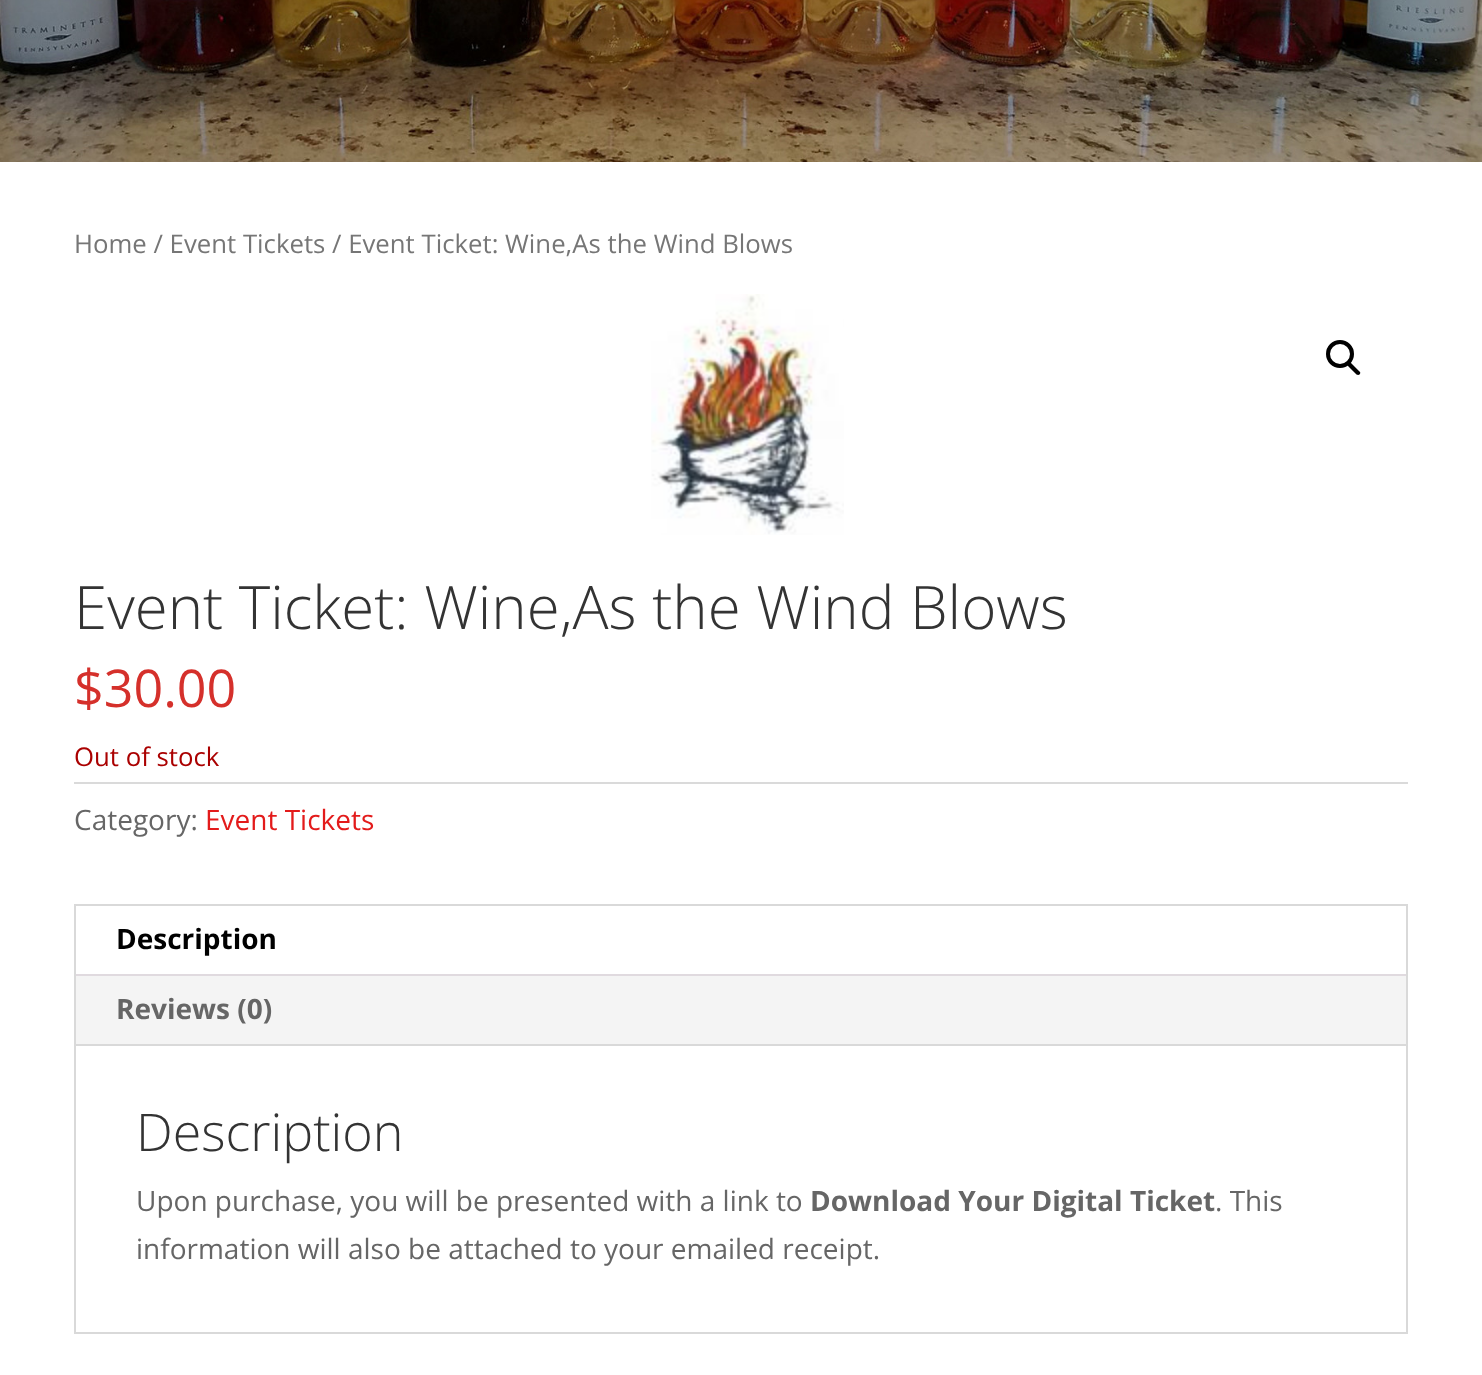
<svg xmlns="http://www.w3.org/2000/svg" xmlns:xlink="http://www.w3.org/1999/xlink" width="1482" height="1375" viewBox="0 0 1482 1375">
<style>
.cls-1{font:25.75px Open Sans;fill:#767676}
.cls-2{font:300 60px Open Sans;fill:#333333}
.cls-3{font:52px Open Sans;fill:#d5302b}
.cls-4{font:25.75px Open Sans;fill:#aa0000}
.cls-5{font:28px Open Sans;fill:#666666}
.cls-6{font:28px Open Sans;fill:#e31b1b}
.cls-7{font:bold 28px Open Sans;fill:#000000}
.cls-8{font:bold 28px Open Sans;fill:#666666}
.cls-9{font:300 52px Open Sans;fill:#333333}
</style>
<rect width="100%" height="100%" fill="#ffffff"/>
<image xlink:href="image0.png" x="0" y="0" width="1482" height="162"/>
<image xlink:href="image1.png" x="651" y="294" width="193" height="241"/>
<circle fill="none" stroke="#000000" stroke-width="4" cx="1340" cy="354" r="12"/>
<path fill="#000000" d="M1348 363C1349 362 1350.5 362 1351 363L1359.5 371.5C1360.5 372 1360.5 373.5 1359.5 374.5C1359 375 1357.5 375 1356.5 374.5L1348 366C1347.5 365 1347.5 363.5 1348 363Z"/>
<rect fill="#dadada" x="74" y="782" width="1334" height="2"/>
<rect fill="none" stroke="#d9d9d9" stroke-width="2" x="75" y="905" width="1332" height="428"/>
<rect fill="#f4f4f4" x="76" y="976" width="1330" height="68"/>
<rect fill="#e0dadf" x="76" y="974" width="1330" height="2"/>
<rect fill="#d9d9d9" x="76" y="1044" width="1330" height="2"/>
<text class="cls-1" x="74" y="253">Home / Event Tickets / Event Ticket: Wine,As the Wind Blows</text>
<text class="cls-2" x="74" y="629">Event Ticket: Wine,As the Wind Blows</text>
<text class="cls-3" x="74" y="707">$30.00</text>
<text class="cls-4" x="74" y="766">Out of stock</text>
<text class="cls-5" x="74" y="830">Category:</text>
<text class="cls-6" x="205" y="830">Event Tickets</text>
<text class="cls-7" x="116" y="949">Description</text>
<text class="cls-8" x="116" y="1019">Reviews (0)</text>
<text class="cls-9" x="136" y="1151">Description</text>
<text class="cls-5" x="136" y="1211">Upon purchase, you will be presented with a link to</text>
<text class="cls-8" x="810" y="1211">Download Your Digital Ticket</text>
<text class="cls-5" x="1215" y="1211">. This</text>
<text class="cls-5" x="136" y="1259">information will also be attached to your emailed receipt.</text>
</svg>
